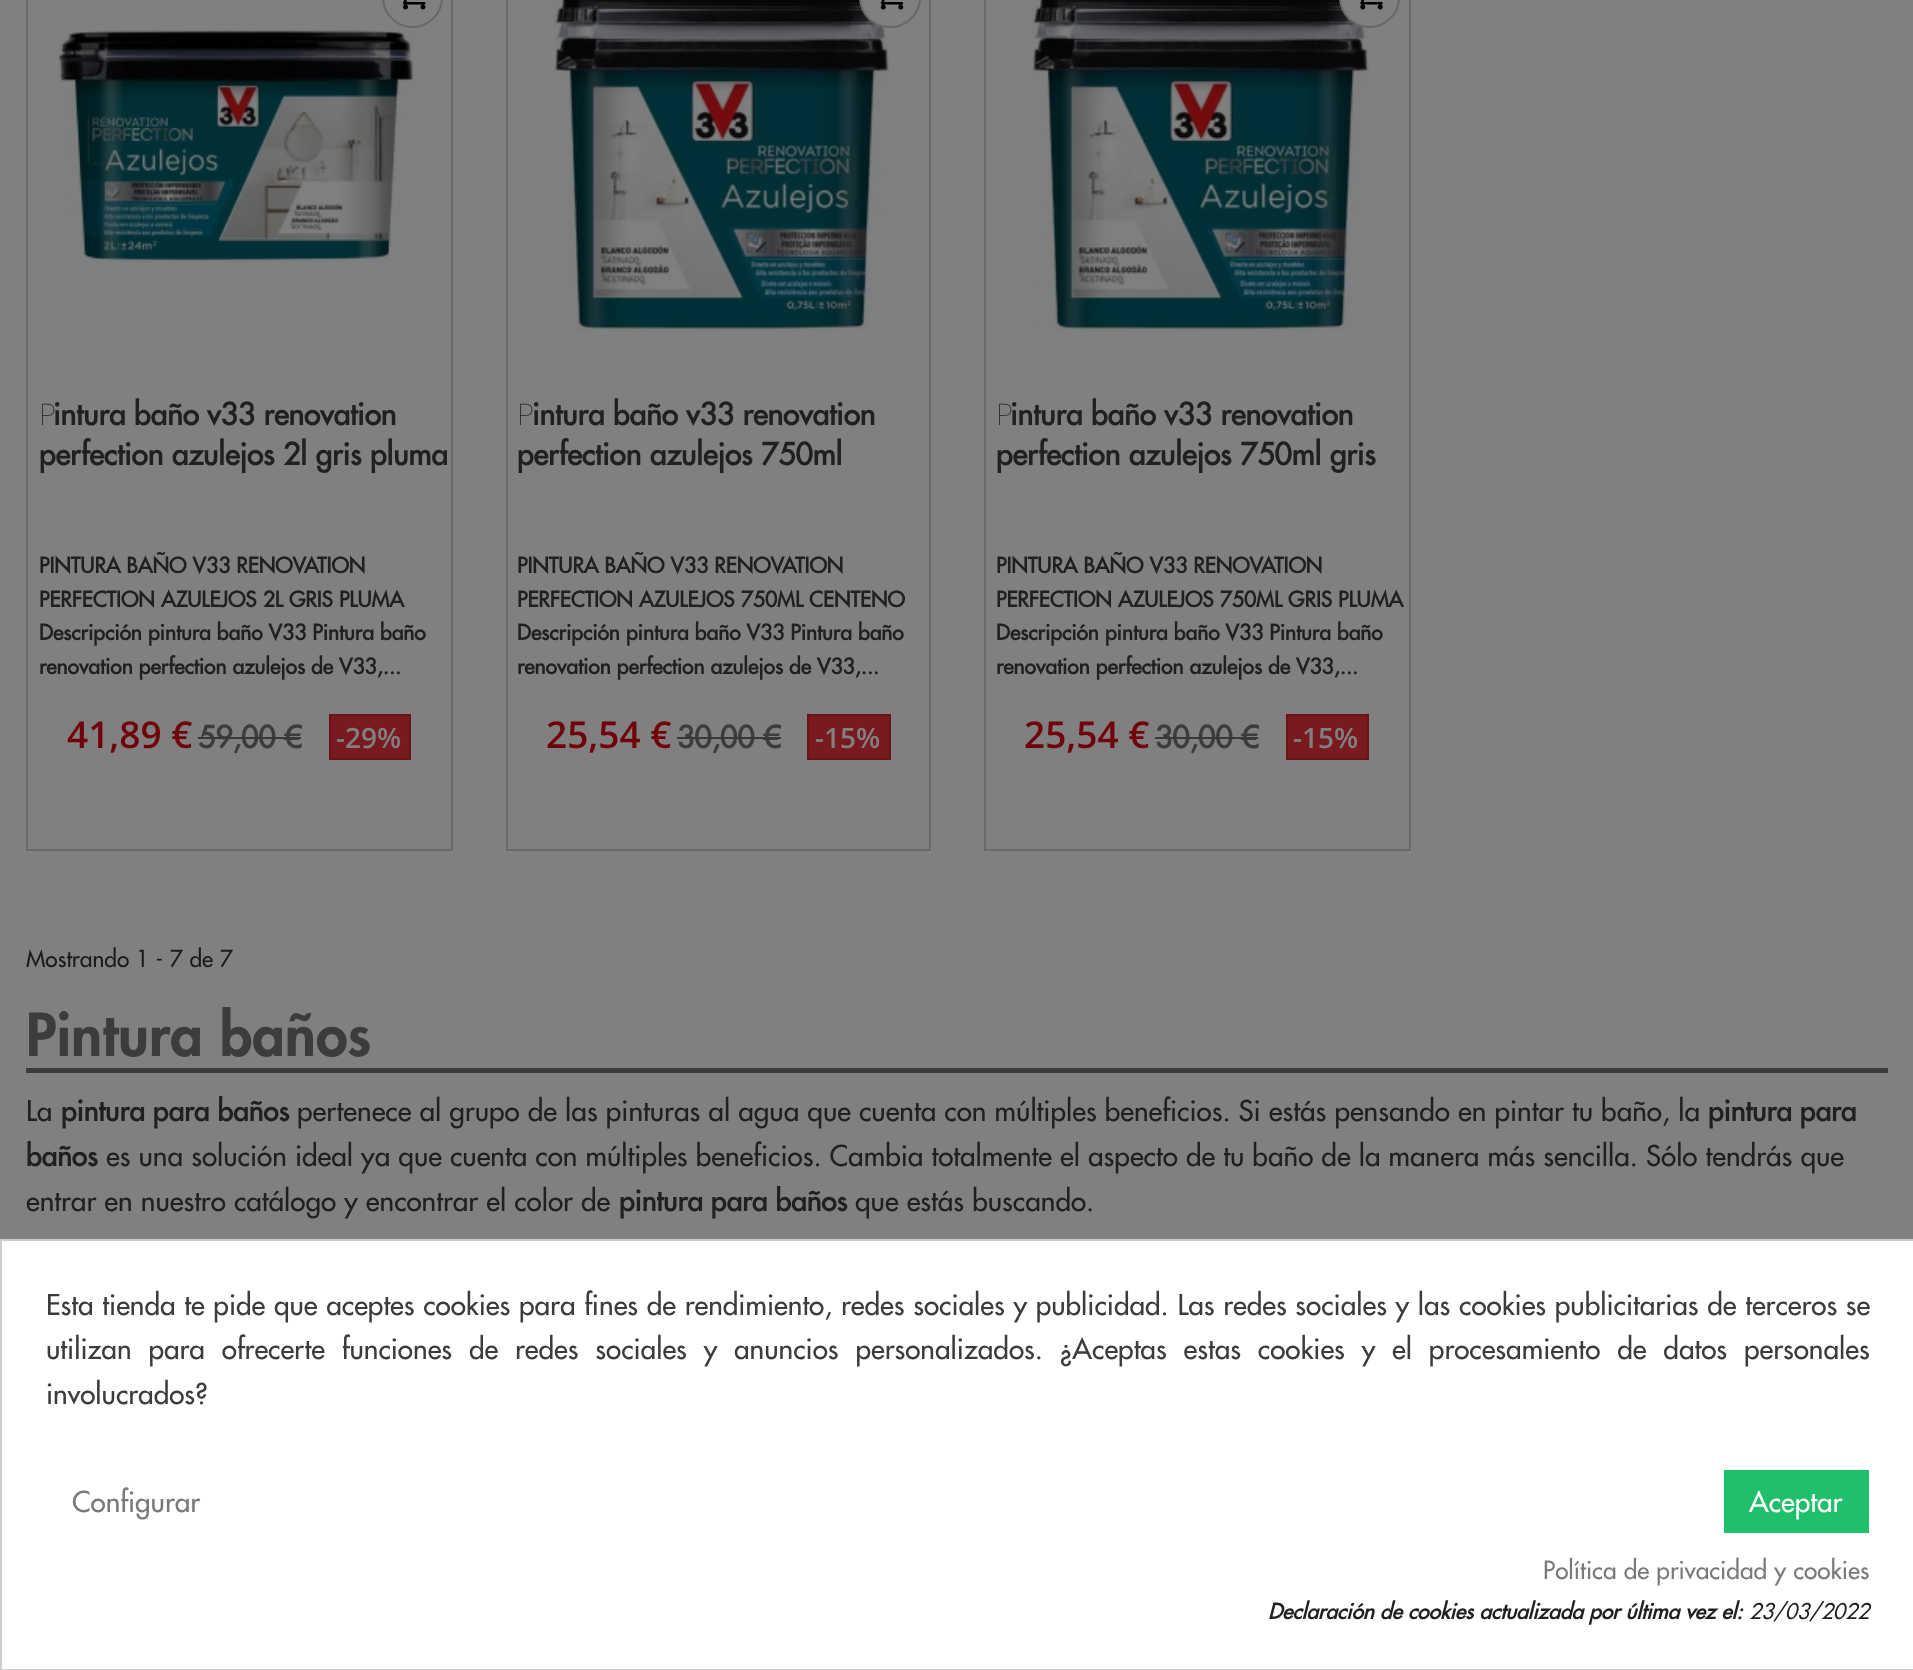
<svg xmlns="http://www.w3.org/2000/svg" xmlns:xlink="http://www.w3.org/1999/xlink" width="1913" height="1670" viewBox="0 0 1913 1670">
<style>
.cls-1{font:100 29.75px Noto Sans;fill:#202020}
.cls-2{font:bold 29.75px Futura;fill:#202020}
.cls-3{font:bold 21px Futura;fill:#202020}
.cls-4{font:600 37px Open Sans;fill:#710209}
.cls-5{font:bold 29.75px Futura;fill:#3c3c3c}
.cls-6{font:600 28px Open Sans;fill:#808080}
.cls-7{font:22.75px Futura;fill:#1a1a1a}
.cls-8{font:900 57.75px Futura;fill:#3c3c3c}
.cls-9{font:28px Futura;fill:#202020}
.cls-10{font:bold 28px Futura;fill:#202020}
.cls-11{font:28px Futura;fill:#3c3c3c}
.cls-12{font:28px Futura;fill:#7a7a7a}
.cls-13{font:28px Futura;fill:#ffffff}
.cls-14{font:24.5px Futura;fill:#7a7a7a}
.cls-15{font:italic bold 21px Futura;fill:#202020}
.cls-16{font:italic 21px Futura;fill:#202020}
</style>
<rect width="100%" height="100%" fill="#808080"/>
<rect fill="none" stroke="#6b6a6a" stroke-width="2" x="27" y="-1" width="425" height="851"/>
<image xlink:href="image0.png" x="58" y="30" width="357" height="233"/>
<circle fill="none" stroke="#676767" stroke-width="2" cx="412.5" cy="-2.5" r="29.5"/>
<image xlink:href="image1.png" x="403" y="0" width="23" height="10"/>
<rect fill="#791a20" stroke="#681516" stroke-width="2" x="330" y="715" width="80" height="44"/>
<rect fill="none" stroke="#6b6a6a" stroke-width="2" x="507" y="-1" width="423" height="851"/>
<image xlink:href="image2.png" x="554" y="0" width="335" height="332"/>
<rect fill="#808080" stroke="#676767" stroke-width="2" x="860" y="-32" width="60" height="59" rx="29.5"/>
<image xlink:href="image3.png" x="880" y="0" width="24" height="10"/>
<rect fill="#791a20" stroke="#681516" stroke-width="2" x="808" y="715" width="82" height="44"/>
<rect fill="none" stroke="#6b6a6a" stroke-width="2" x="985" y="-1" width="425" height="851"/>
<image xlink:href="image4.png" x="1032" y="0" width="337" height="332"/>
<circle fill="#808080" stroke="#676767" stroke-width="2" cx="1369.5" cy="-2.5" r="29.5"/>
<image xlink:href="image5.png" x="1360" y="0" width="23" height="10"/>
<rect fill="#791a20" stroke="#681516" stroke-width="2" x="1287" y="715" width="81" height="44"/>
<rect fill="#3c3c3c" x="26" y="1068" width="1862" height="5"/>
<rect fill="#ffffff" stroke="#cccccc" stroke-width="2" x="1" y="1240" width="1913" height="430"/>
<rect fill="#20bf6b" x="1724" y="1470" width="145" height="63"/>
<text class="cls-1" x="39" y="425">P</text>
<text class="cls-2" x="53" y="425">intura baño v33 renovation</text>
<text class="cls-2" x="39" y="465">perfection azulejos 2l gris pluma</text>
<text class="cls-3"><tspan x="39" y="573">PINTURA BAÑO V33 RENOVATION</tspan><tspan x="39" y="607">PERFECTION AZULEJOS 2L GRIS PLUMA</tspan><tspan x="39" y="640">Descripción pintura baño V33 Pintura baño</tspan><tspan x="39" y="674">renovation perfection azulejos de V33,...</tspan></text>
<text class="cls-4" x="67" y="748">41,89 €</text>
<text class="cls-5" x="198" y="748">59,00 €</text>
<rect fill="#383838" x="198" y="737" width="103" height="2"/>
<text class="cls-6" x="336" y="748">-29%</text>
<text class="cls-1" x="517" y="425">P</text>
<text class="cls-2" x="532" y="425">intura baño v33 renovation</text>
<text class="cls-2" x="517" y="465">perfection azulejos 750ml</text>
<text class="cls-3"><tspan x="517" y="573">PINTURA BAÑO V33 RENOVATION</tspan><tspan x="517" y="607">PERFECTION AZULEJOS 750ML CENTENO</tspan><tspan x="517" y="640">Descripción pintura baño V33 Pintura baño</tspan><tspan x="517" y="674">renovation perfection azulejos de V33,...</tspan></text>
<text class="cls-4" x="546" y="748">25,54 €</text>
<text class="cls-5" x="677" y="748">30,00 €</text>
<rect fill="#383838" x="677" y="737" width="104" height="2"/>
<text class="cls-6" x="815" y="748">-15%</text>
<text class="cls-1" x="996" y="425">P</text>
<text class="cls-2" x="1010" y="425">intura baño v33 renovation</text>
<text class="cls-2" x="996" y="465">perfection azulejos 750ml gris</text>
<text class="cls-3"><tspan x="996" y="573">PINTURA BAÑO V33 RENOVATION</tspan><tspan x="996" y="607">PERFECTION AZULEJOS 750ML GRIS PLUMA</tspan><tspan x="996" y="640">Descripción pintura baño V33 Pintura baño</tspan><tspan x="996" y="674">renovation perfection azulejos de V33,...</tspan></text>
<text class="cls-4" x="1024" y="748">25,54 €</text>
<text class="cls-5" x="1155" y="748">30,00 €</text>
<rect fill="#383838" x="1155" y="737" width="103" height="2"/>
<text class="cls-6" x="1293" y="748">-15%</text>
<text class="cls-7" x="26" y="967">Mostrando 1 - 7 de 7</text>
<text class="cls-8" x="26" y="1056">Pintura baños</text>
<text class="cls-9" x="26" y="1121">La</text>
<text class="cls-10" x="61" y="1121">pintura para baños</text>
<text class="cls-9" x="297" y="1121">pertenece al grupo de las pinturas al agua que cuenta con múltiples beneficios. Si estás pensando en pintar tu baño, la</text>
<text class="cls-10" x="1708" y="1121">pintura para</text>
<text class="cls-10" x="26" y="1166">baños</text>
<text class="cls-9" x="106" y="1166">es una solución ideal ya que cuenta con múltiples beneficios. Cambia totalmente el aspecto de tu baño de la manera más sencilla. Sólo tendrás que</text>
<text class="cls-9" x="26" y="1211">entrar en nuestro catálogo y encontrar el color de</text>
<text class="cls-10" x="619" y="1211">pintura para baños</text>
<text class="cls-9" x="855" y="1211">que estás buscando.</text>
<text class="cls-11"><tspan x="46" y="1315" word-spacing="0.6">Esta tienda te pide que aceptes cookies para fines de rendimiento, redes sociales y publicidad. Las redes sociales y las cookies publicitarias de terceros se</tspan><tspan x="46" y="1359" word-spacing="8.75">utilizan para ofrecerte funciones de redes sociales y anuncios personalizados. ¿Aceptas estas cookies y el procesamiento de datos personales</tspan><tspan x="46" y="1404">involucrados?</tspan></text>
<text class="cls-12" x="72" y="1512">Configurar</text>
<text class="cls-13" x="1749" y="1512">Aceptar</text>
<text class="cls-14" x="1543" y="1579">Política de privacidad y cookies</text>
<text class="cls-15" x="1268" y="1619">Declaración de cookies actualizada por última vez el:</text>
<text class="cls-16" x="1749" y="1619">23/03/2022</text>
</svg>
